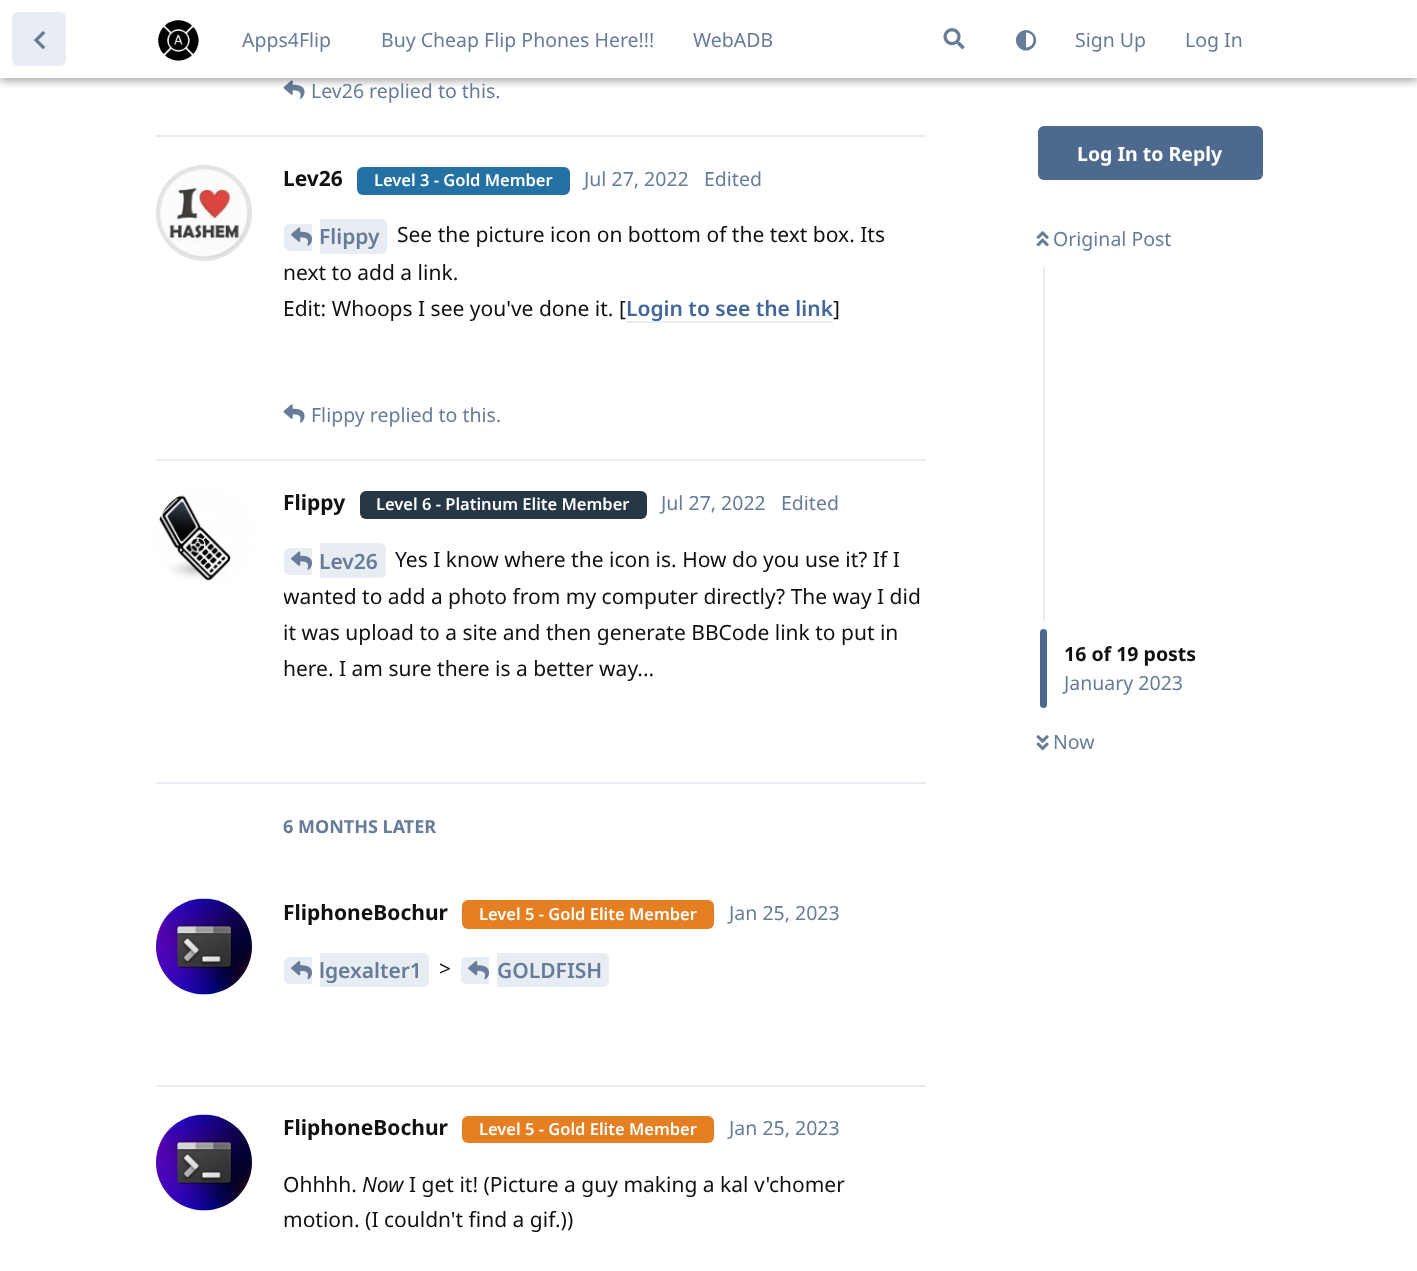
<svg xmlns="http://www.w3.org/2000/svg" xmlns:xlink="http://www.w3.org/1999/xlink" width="1417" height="1271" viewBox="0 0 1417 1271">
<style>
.cls-1{font:19.5px Noto Sans;fill:#667c99}
.cls-2{font:bold 21px Noto Sans;fill:#111111}
.cls-3{font:600 16.5px Noto Sans;fill:#ffffff}
.cls-4{font:600 21px Noto Sans;fill:#667c99}
.cls-5{font:21px Noto Sans;fill:#111111}
.cls-6{font:600 21px Noto Sans;fill:#426799}
.cls-7{font:bold 18px Noto Sans;fill:#667c99}
.cls-8{font:italic 21px Noto Sans;fill:#111111}
.cls-9{font:bold 19.5px Noto Sans;fill:#ffffff}
.cls-10{font:bold 19.5px Noto Sans;fill:#111111}
</style>
<defs>
<clipPath id="clip1"><rect x="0" y="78" width="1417" height="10"/></clipPath>
<clipPath id="clip2"><rect x="284" y="542" width="642" height="165"/></clipPath>
</defs>
<rect width="100%" height="100%" fill="#ffffff"/>
<image xlink:href="image3.png" x="283" y="80" width="22" height="19"/>
<g clip-path="url(#clip1)">
<rect fill="#000000" fill-opacity="0.35" filter="blur(4.5px)" x="0" y="3" width="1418" height="78"/>
</g>
<rect fill="#e8ecf3" x="12" y="12" width="54" height="54" rx="6"/>
<image xlink:href="image0.png" x="34" y="31" width="11" height="18"/>
<image xlink:href="image1.png" x="158" y="20" width="41" height="41"/>
<image xlink:href="image2.png" x="943" y="28" width="22" height="22"/>
<path fill="#667c99" d="M1019 47.5C1009.5 38 1023.5 23.5 1033 33C1042.5 42.5 1028.5 57 1019 47.5ZM1026 47.5C1036 47.5 1036 32.5 1026 32.5Z"/>
<rect fill="#e8ecf3" x="156" y="135" width="770" height="2"/>
<rect fill="#e8ecf3" x="156" y="459" width="770" height="2"/>
<circle fill="#e8ecf3" cx="204" cy="213" r="48"/>
<image xlink:href="image4.png" x="156" y="165" width="96" height="96"/>
<rect fill="#2471a3" x="357" y="167" width="213" height="28" rx="6"/>
<path fill="#e8ecf3" d="M290 224H312V251H290C286.5 251 284 248.5 284 245V230C284 226.5 286.5 224 290 224Z"/>
<path fill="#e8ecf3" d="M320 219H381C384.5 219 387 221.5 387 225V248C387 251.5 384.5 254 381 254H320Z"/>
<image xlink:href="image5.png" x="291" y="227" width="21" height="19"/>
<rect fill="#e8ecf3" x="626" y="321" width="207" height="2"/>
<image xlink:href="image3.png" x="283" y="404" width="22" height="19"/>
<rect fill="#e8ecf3" x="156" y="782" width="770" height="2"/>
<circle fill="#e8ecf3" cx="204" cy="537" r="48"/>
<image xlink:href="image6.png" x="156" y="489" width="96" height="96"/>
<rect fill="#273746" x="360" y="491" width="287" height="28" rx="6"/>
<path fill="#e8ecf3" d="M290 548H312V575H290C286.5 575 284 572.5 284 569V554C284 550.5 286.5 548 290 548Z"/>
<path fill="#e8ecf3" d="M320 543H380C383.5 543 386 545.5 386 549V572C386 575.5 383.5 578 380 578H320Z"/>
<image xlink:href="image5.png" x="291" y="551" width="21" height="19"/>
<rect fill="#e8ecf3" x="156" y="1085" width="770" height="2"/>
<circle fill="#e8ecf3" cx="204" cy="947" r="48"/>
<image xlink:href="image7.png" x="156" y="898" width="96" height="97"/>
<rect fill="#e67e22" x="462" y="900" width="252" height="29" rx="6"/>
<path fill="#e8ecf3" d="M290 957H312V984H290C286.5 984 284 981.5 284 978V963C284 959.5 286.5 957 290 957Z"/>
<path fill="#e8ecf3" d="M320 953H423C426.5 953 429 955.5 429 959V981C429 984.5 426.5 987 423 987H320Z"/>
<image xlink:href="image8.png" x="291" y="961" width="21" height="19"/>
<path fill="#e8ecf3" d="M467 957H489V984H467C463.5 984 461 981.5 461 978V963C461 959.5 463.5 957 467 957Z"/>
<path fill="#e8ecf3" d="M497 953H603C606.5 953 609 955.5 609 959V981C609 984.5 606.5 987 603 987H497Z"/>
<image xlink:href="image8.png" x="468" y="961" width="21" height="19"/>
<circle fill="#e8ecf3" cx="204" cy="1163" r="48"/>
<image xlink:href="image7.png" x="156" y="1114" width="96" height="97"/>
<rect fill="#e67e22" x="462" y="1116" width="252" height="27" rx="6"/>
<rect fill="#4d698e" x="1038" y="126" width="225" height="54" rx="6"/>
<image xlink:href="image9.png" x="1036" y="231" width="13" height="16"/>
<rect fill="#e8ecf3" x="1043" y="267" width="2" height="354"/>
<rect fill="#4d698e" x="1040" y="629" width="7" height="79" rx="3.5"/>
<image xlink:href="image10.png" x="1036" y="735" width="13" height="16"/>
<text class="cls-1" x="242" y="47">Apps4Flip</text>
<text class="cls-1" x="381" y="47">Buy Cheap Flip Phones Here!!!</text>
<text class="cls-1" x="693" y="47">WebADB</text>
<text class="cls-1" x="1075" y="47">Sign Up</text>
<text class="cls-1" x="1185" y="47">Log In</text>
<text class="cls-1" x="311" y="98">Lev26 replied to this.</text>
<text class="cls-2" x="283" y="186">Lev26</text>
<text class="cls-3" x="374" y="186">Level 3 - Gold Member</text>
<text class="cls-1" x="584" y="186">Jul 27, 2022</text>
<text class="cls-1" x="704" y="186">Edited</text>
<text class="cls-4" x="319" y="244">Flippy</text>
<text class="cls-5" x="397" y="242">See the picture icon on bottom of the text box. Its</text>
<text class="cls-5"><tspan x="283" y="280">next to add a link.</tspan><tspan x="283" y="316">Edit: Whoops I see you've done it. [</tspan></text>
<text class="cls-6" x="626" y="316">Login to see the link</text>
<text class="cls-5" x="833" y="316">]</text>
<text class="cls-1" x="311" y="422">Flippy replied to this.</text>
<text class="cls-2" x="283" y="510">Flippy</text>
<text class="cls-3" x="376" y="510">Level 6 - Platinum Elite Member</text>
<text class="cls-1" x="661" y="510">Jul 27, 2022</text>
<text class="cls-1" x="781" y="510">Edited</text>
<text class="cls-4" x="319" y="569">Lev26</text>
<text class="cls-5" x="395" y="567">Yes I know where the icon is. How do you use it? If I</text>
<g clip-path="url(#clip2)">
<text class="cls-5" x="283" y="604">wanted to add a photo from my computer directly? The way I did</text>
</g>
<text class="cls-5"><tspan x="283" y="640">it was upload to a site and then generate BBCode link to put in</tspan><tspan x="283" y="676">here. I am sure there is a better way...</tspan></text>
<text class="cls-7" x="283" y="833">6 MONTHS LATER</text>
<text class="cls-2" x="283" y="920">FliphoneBochur</text>
<text class="cls-3" x="479" y="920">Level 5 - Gold Elite Member</text>
<text class="cls-1" x="729" y="920">Jan 25, 2023</text>
<text class="cls-4" x="319" y="978">lgexalter1</text>
<text class="cls-5" x="439" y="976">&gt;</text>
<text class="cls-4" x="497" y="978">GOLDFISH</text>
<text class="cls-2" x="283" y="1135">FliphoneBochur</text>
<text class="cls-3" x="479" y="1135">Level 5 - Gold Elite Member</text>
<text class="cls-1" x="729" y="1135">Jan 25, 2023</text>
<text class="cls-5" x="283" y="1192">Ohhhh.</text>
<text class="cls-8" x="362" y="1192">Now</text>
<text class="cls-5" x="409" y="1192">I get it! (Picture a guy making a kal v'chomer</text>
<text class="cls-5" x="283" y="1227">motion. (I couldn't find a gif.))</text>
<text class="cls-9" x="1077" y="161">Log In to Reply</text>
<text class="cls-1" x="1053" y="246">Original Post</text>
<text class="cls-10" x="1064" y="661">16 of 19 posts</text>
<text class="cls-1" x="1064" y="690">January 2023</text>
<text class="cls-1" x="1053" y="749">Now</text>
</svg>
